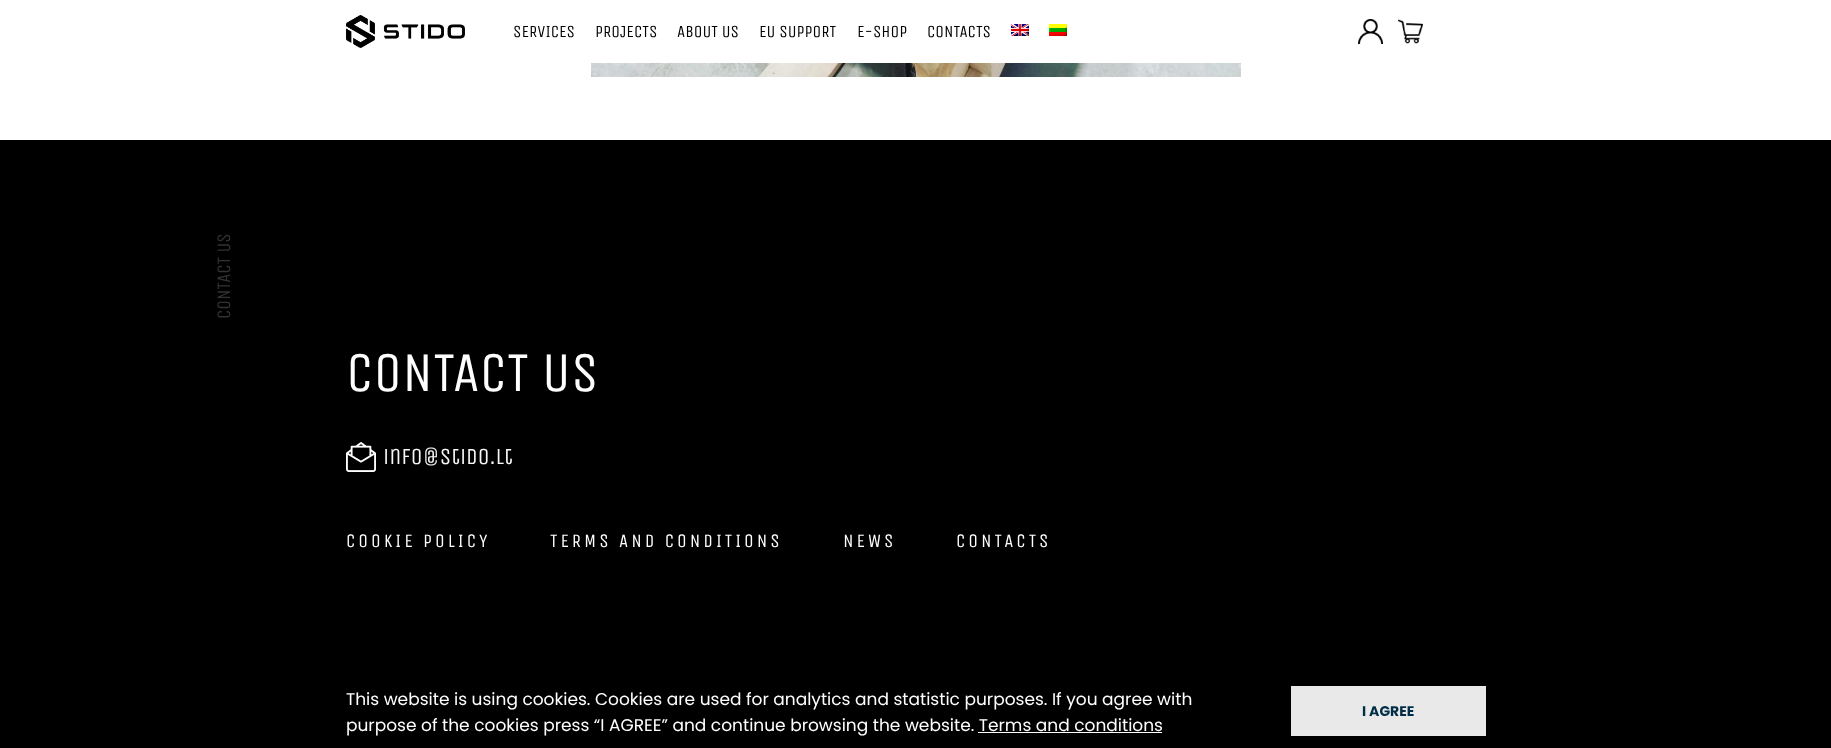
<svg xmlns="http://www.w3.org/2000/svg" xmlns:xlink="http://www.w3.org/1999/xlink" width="1831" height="748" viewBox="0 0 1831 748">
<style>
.cls-1{font:17px Unica One;fill:#000000}
.cls-2{font:19px Unica One;fill:#333333}
.cls-3{font:56px Unica One;fill:#ffffff}
.cls-4{font:23px Unica One;fill:#f7f8f8}
.cls-5{font:19px Unica One;letter-spacing:3px;fill:#ffffff}
.cls-6{font:17px Poppins;fill:#ffffff}
.cls-7{font:bold 14px Poppins;fill:#002d47}
</style>
<rect width="100%" height="100%" fill="#ffffff"/>
<image xlink:href="image0.png" x="346" y="15" width="119" height="33"/>
<image xlink:href="image1.png" x="1011" y="24" width="18" height="12"/>
<image xlink:href="image2.png" x="1049" y="24" width="18" height="12"/>
<image xlink:href="image3.png" x="1358" y="19" width="25" height="25"/>
<image xlink:href="image4.png" x="1398" y="19" width="25" height="25"/>
<image xlink:href="image5.png" x="591" y="63" width="650" height="14"/>
<rect fill="#000000" x="0" y="140" width="1831" height="608"/>
<image xlink:href="image6.png" x="346" y="442" width="30" height="30"/>
<rect fill="#ffffff" x="978" y="732" width="184" height="1"/>
<rect fill="#e9e9e9" x="1291" y="686" width="195" height="50"/>
<text class="cls-1" x="513" y="37">SERVICES</text>
<text class="cls-1" x="595" y="37">PROJECTS</text>
<text class="cls-1" x="677" y="37">ABOUT US</text>
<text class="cls-1" x="759" y="37">EU SUPPORT</text>
<text class="cls-1" x="857" y="37">E-SHOP</text>
<text class="cls-1" x="927" y="37">CONTACTS</text>
<text class="cls-2" x="230" y="319" transform="rotate(-90 230 319)">CONTACT US</text>
<text class="cls-3" x="346" y="391">CONTACT US</text>
<text class="cls-4" x="383" y="464">info@stido.lt</text>
<text class="cls-5" x="346" y="547">COOKIE POLICY</text>
<text class="cls-5" x="550" y="547">TERMS AND CONDITIONS</text>
<text class="cls-5" x="843" y="547">NEWS</text>
<text class="cls-5" x="956" y="547">CONTACTS</text>
<text class="cls-6"><tspan x="346" y="705">This website is using cookies. Cookies are used for analytics and statistic purposes. If you agree with</tspan><tspan x="346" y="731">purpose of the cookies press “I AGREE” and continue browsing the website. Terms and conditions</tspan></text>
<text class="cls-7" x="1362" y="716">I AGREE</text>
</svg>
